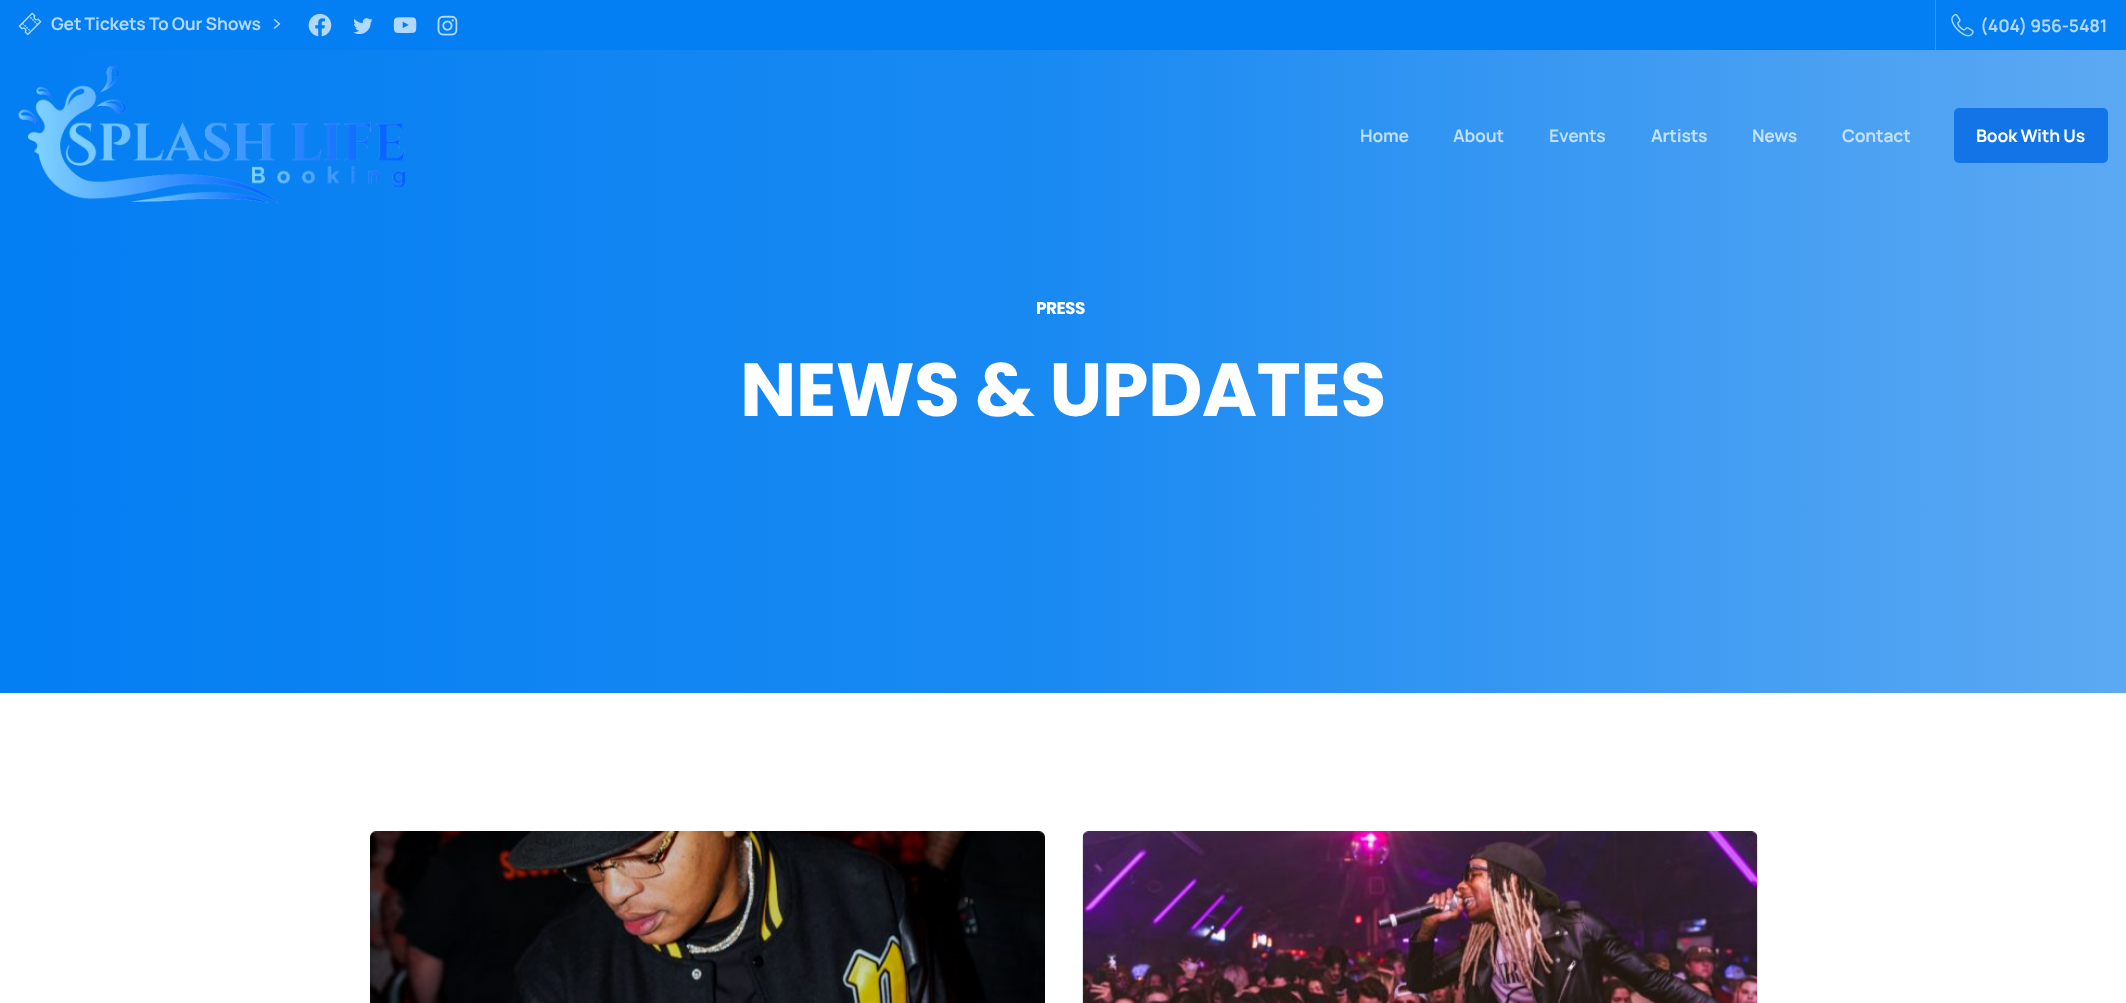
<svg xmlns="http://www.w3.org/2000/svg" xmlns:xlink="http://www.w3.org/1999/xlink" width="2126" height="1003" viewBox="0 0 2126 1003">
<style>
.cls-1{font:bold 17.5px Manrope;letter-spacing:-0.2px;fill:#b3d8fb}
.cls-2{font:bold 17.5px Manrope;letter-spacing:-0.2px;fill:#c0dffb}
.cls-3{font:bold 17.5px Manrope;letter-spacing:-0.2px;fill:#c6e1fb}
.cls-4{font:bold 17.5px Manrope;letter-spacing:-0.2px;fill:#ffffff}
.cls-5{font:bold 17px Poppins;letter-spacing:-0.6px;fill:#ffffff}
.cls-6{font:bold 75px Poppins;letter-spacing:-0.6px;fill:#ffffff}
</style>
<defs>
<linearGradient id="g1" gradientUnits="userSpaceOnUse" x1="0" y1="502" x2="2126" y2="502"><stop offset="0" stop-color="#037ef3"/><stop offset="0.5" stop-color="#1a8af2"/><stop offset="1" stop-color="#5ca9f2"/></linearGradient>
</defs>
<rect width="100%" height="100%" fill="#ffffff"/>
<rect fill="#037ef3" x="0" y="0" width="2126" height="50"/>
<image xlink:href="image0.png" x="18" y="12" width="24" height="24"/>
<image xlink:href="image1.png" x="273" y="19" width="8" height="10"/>
<image xlink:href="image2.png" x="308" y="13" width="24" height="24"/>
<image xlink:href="image3.png" x="353" y="18" width="20" height="17"/>
<image xlink:href="image4.png" x="393" y="17" width="24" height="17"/>
<image xlink:href="image5.png" x="437" y="15" width="21" height="21"/>
<rect fill="#3598f5" x="1935" y="0" width="1" height="50"/>
<image xlink:href="image6.png" x="1951" y="13" width="23" height="24"/>
<rect fill="url(#g1)" x="0" y="50" width="2126" height="643"/>
<image xlink:href="image7.png" x="18" y="66" width="387" height="138"/>
<rect fill="#1274e7" x="1954" y="108" width="154" height="55" rx="5"/>
<image xlink:href="image8.png" x="370" y="831" width="675" height="172"/>
<image xlink:href="image9.png" x="1082" y="831" width="676" height="172"/>
<text class="cls-1" x="51" y="30">Get Tickets To Our Shows</text>
<text class="cls-1" x="1980" y="32">(404) 956-5481</text>
<text class="cls-2" x="1360" y="142">Home</text>
<text class="cls-2" x="1453" y="142">About</text>
<text class="cls-2" x="1549" y="142">Events</text>
<text class="cls-3" x="1651" y="142">Artists</text>
<text class="cls-3" x="1752" y="142">News</text>
<text class="cls-3" x="1842" y="142">Contact</text>
<text class="cls-4" x="1976" y="142">Book With Us</text>
<text class="cls-5" x="1036" y="314">PRESS</text>
<text class="cls-6" x="740" y="416">NEWS &amp; UPDATES</text>
</svg>
